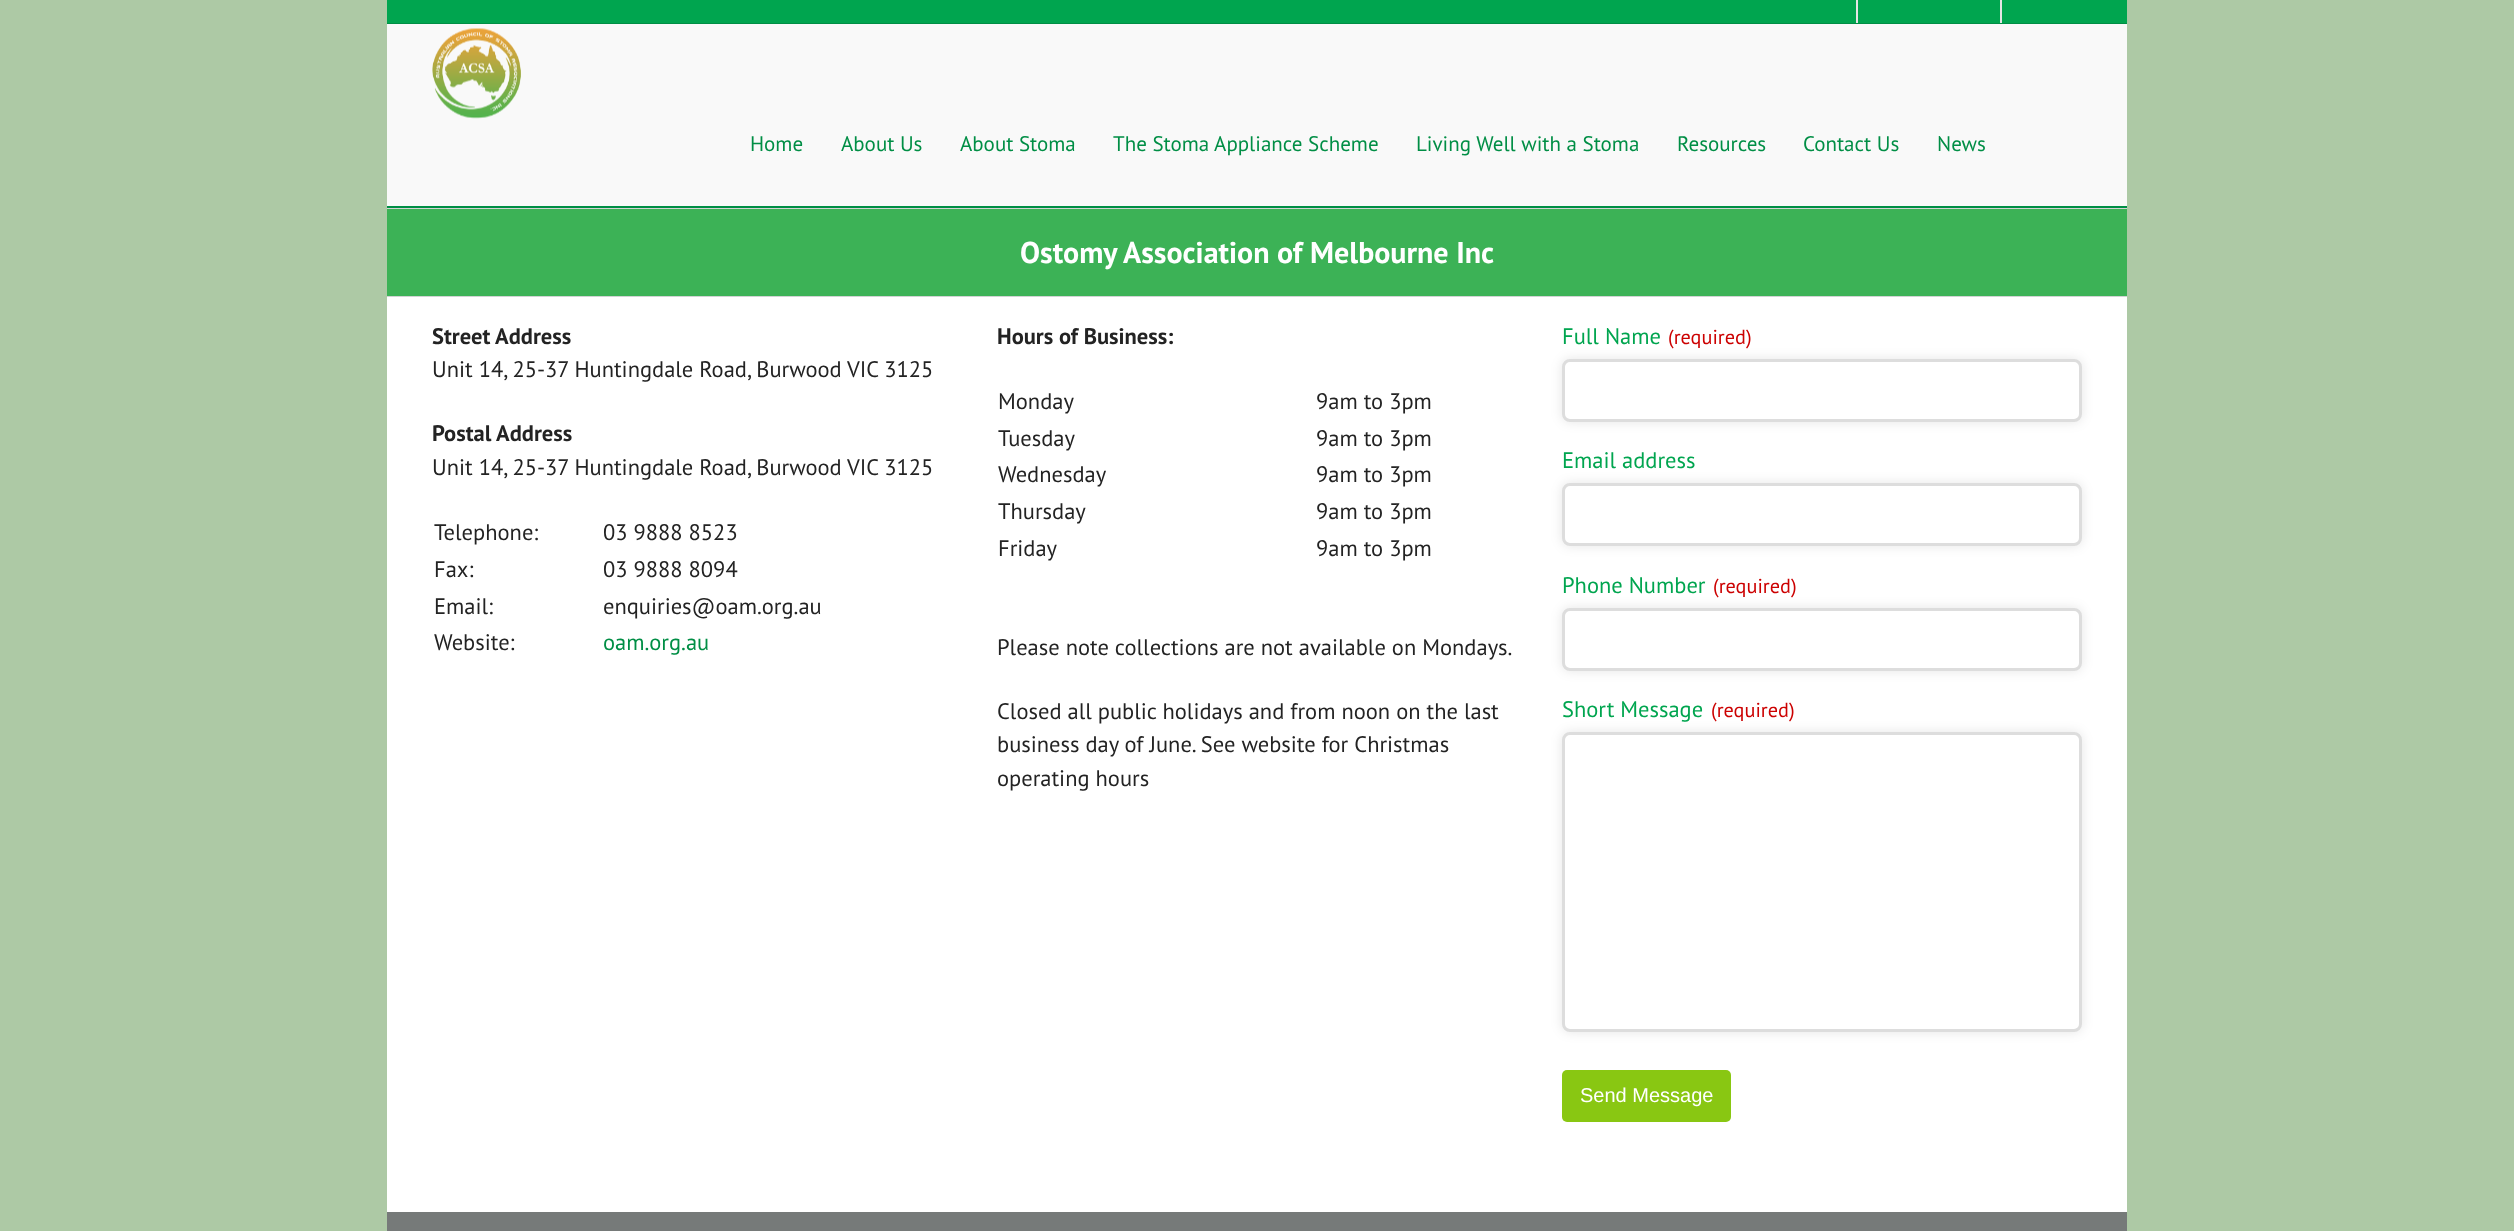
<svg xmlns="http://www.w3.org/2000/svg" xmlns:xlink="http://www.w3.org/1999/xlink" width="2514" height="1231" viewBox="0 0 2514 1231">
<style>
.cls-1{font:21px PT Sans;fill:#008e45}
.cls-2{font:bold 30px PT Sans;fill:#ffffff}
.cls-3{font:bold 22.5px PT Sans;fill:#232323}
.cls-4{font:22.5px PT Sans;fill:#232323}
.cls-5{font:22.5px PT Sans;fill:#008e45}
.cls-6{font:22.5px PT Sans;fill:#00a54f}
.cls-7{font:20.25px PT Sans;fill:#cc0101}
.cls-8{font:20px Liberation Sans;fill:#ffffff}
</style>
<rect width="100%" height="100%" fill="#adc9a5"/>
<rect fill="#00a54f" x="387" y="0" width="1740" height="23"/>
<rect fill="#008e45" x="387" y="23" width="1740" height="1"/>
<rect fill="#e5e5e5" x="1856" y="0" width="2" height="23"/>
<rect fill="#e5e5e5" x="2000" y="0" width="2" height="23"/>
<rect fill="#f9f9f9" x="387" y="24" width="1740" height="182"/>
<rect fill="#008e45" x="387" y="206" width="1740" height="2"/>
<image xlink:href="image0.png" x="432" y="28" width="89" height="91"/>
<rect fill="#3cb256" x="387" y="209" width="1740" height="87"/>
<rect fill="#d2d3d4" x="387" y="208" width="1740" height="1"/>
<rect fill="#d2d3d4" x="387" y="296" width="1740" height="1"/>
<rect fill="#ffffff" x="387" y="297" width="1740" height="915"/>
<rect fill="#000000" fill-opacity="0.1" filter="blur(6px)" x="1562" y="359" width="520" height="63" rx="8"/>
<rect fill="#ffffff" stroke="#dddddd" stroke-width="3" x="1563.5" y="360.5" width="517" height="60" rx="6.5"/>
<rect fill="#000000" fill-opacity="0.1" filter="blur(6px)" x="1562" y="483" width="520" height="63" rx="8"/>
<rect fill="#ffffff" stroke="#dddddd" stroke-width="3" x="1563.5" y="484.5" width="517" height="60" rx="6.5"/>
<rect fill="#000000" fill-opacity="0.1" filter="blur(6px)" x="1562" y="608" width="520" height="63" rx="8"/>
<rect fill="#ffffff" stroke="#dddddd" stroke-width="3" x="1563.5" y="609.5" width="517" height="60" rx="6.5"/>
<rect fill="#000000" fill-opacity="0.1" filter="blur(6px)" x="1562" y="732" width="520" height="300" rx="8"/>
<rect fill="#ffffff" stroke="#dddddd" stroke-width="3" x="1563.5" y="733.5" width="517" height="297" rx="6.5"/>
<rect fill="#89c712" x="1562" y="1070" width="169" height="52" rx="5"/>
<rect fill="#767a79" x="387" y="1212" width="1740" height="19"/>
<text class="cls-1" x="750" y="151">Home</text>
<text class="cls-1" x="841" y="151">About Us</text>
<text class="cls-1" x="960" y="151">About Stoma</text>
<text class="cls-1" x="1113" y="151">The Stoma Appliance Scheme</text>
<text class="cls-1" x="1416" y="151">Living Well with a Stoma</text>
<text class="cls-1" x="1677" y="151">Resources</text>
<text class="cls-1" x="1803" y="151">Contact Us</text>
<text class="cls-1" x="1937" y="151">News</text>
<text class="cls-2" x="1020" y="263">Ostomy Association of Melbourne Inc</text>
<text class="cls-3" x="432" y="344">Street Address</text>
<text class="cls-4" x="432" y="377">Unit 14, 25-37 Huntingdale Road, Burwood VIC 3125</text>
<text class="cls-3" x="432" y="441">Postal Address</text>
<text class="cls-4" x="432" y="475">Unit 14, 25-37 Huntingdale Road, Burwood VIC 3125</text>
<text class="cls-4" x="434" y="540">Telephone:</text>
<text class="cls-4" x="603" y="540">03 9888 8523</text>
<text class="cls-4" x="434" y="577">Fax:</text>
<text class="cls-4" x="603" y="577">03 9888 8094</text>
<text class="cls-4" x="434" y="614">Email:</text>
<text class="cls-4" x="603" y="614">enquiries@oam.org.au</text>
<text class="cls-4" x="434" y="650">Website:</text>
<text class="cls-5" x="603" y="650">oam.org.au</text>
<text class="cls-3" x="997" y="344">Hours of Business:</text>
<text class="cls-4" x="998" y="409">Monday</text>
<text class="cls-4" x="1316" y="409">9am to 3pm</text>
<text class="cls-4" x="998" y="446">Tuesday</text>
<text class="cls-4" x="1316" y="446">9am to 3pm</text>
<text class="cls-4" x="998" y="482">Wednesday</text>
<text class="cls-4" x="1316" y="482">9am to 3pm</text>
<text class="cls-4" x="998" y="519">Thursday</text>
<text class="cls-4" x="1316" y="519">9am to 3pm</text>
<text class="cls-4" x="998" y="556">Friday</text>
<text class="cls-4" x="1316" y="556">9am to 3pm</text>
<text class="cls-4" x="997" y="655">Please note collections are not available on Mondays.</text>
<text class="cls-4"><tspan x="997" y="719">Closed all public holidays and from noon on the last</tspan><tspan x="997" y="752">business day of June. See website for Christmas</tspan><tspan x="997" y="786">operating hours</tspan></text>
<text class="cls-6" x="1562" y="344">Full Name</text>
<text class="cls-7" x="1668" y="344">(required)</text>
<text class="cls-6" x="1562" y="468">Email address</text>
<text class="cls-6" x="1562" y="593">Phone Number</text>
<text class="cls-7" x="1713" y="593">(required)</text>
<text class="cls-6" x="1562" y="717">Short Message</text>
<text class="cls-7" x="1711" y="717">(required)</text>
<text class="cls-8" x="1580" y="1102">Send Message</text>
</svg>
